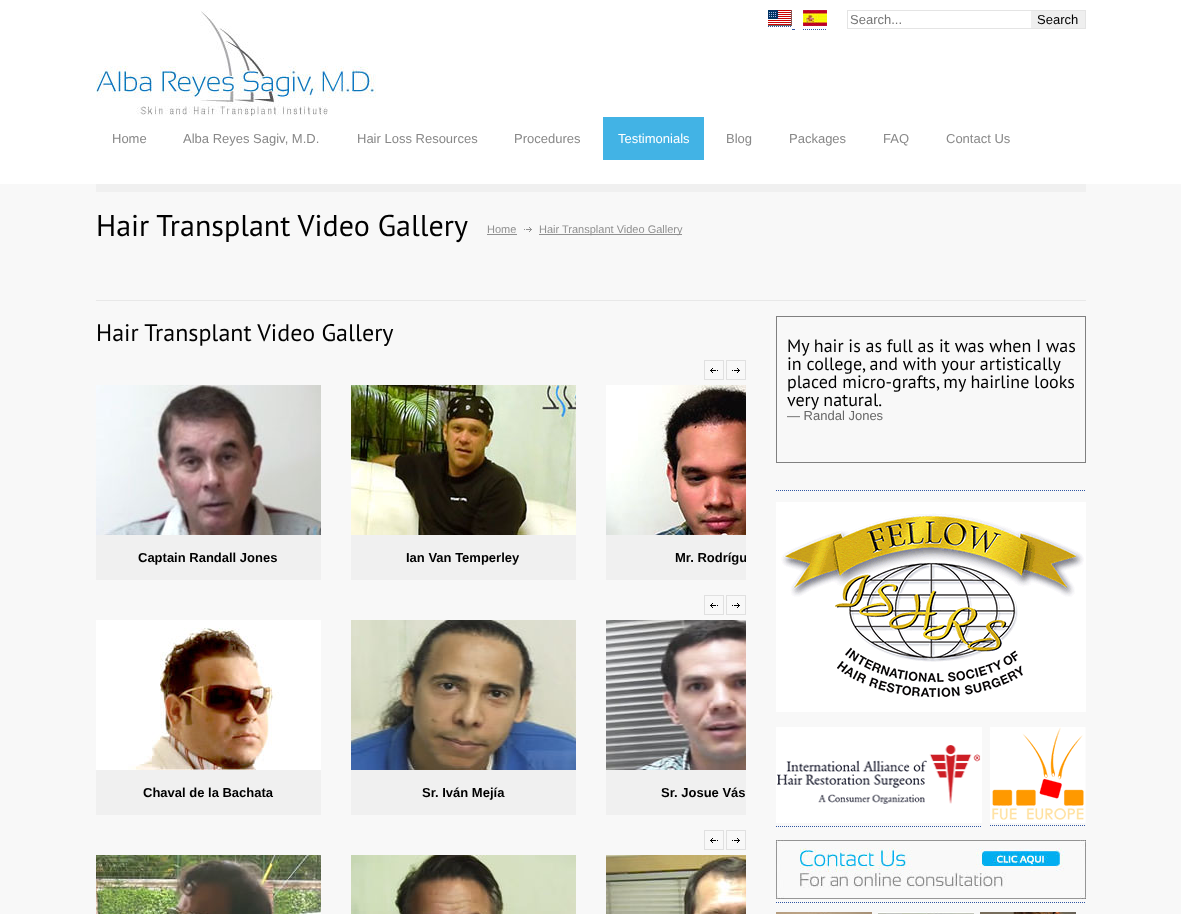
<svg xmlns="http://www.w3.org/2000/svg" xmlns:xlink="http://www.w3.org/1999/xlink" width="1181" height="914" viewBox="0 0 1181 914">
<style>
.cls-1{font:13px Liberation Sans;fill:#757575}
.cls-2{font:13px Liberation Sans;fill:#000000}
.cls-3{font:13px Liberation Sans;fill:#888888}
.cls-4{font:13px Liberation Sans;fill:#ffffff}
.cls-5{font:30px PT Sans;fill:#000000}
.cls-6{font:11px Liberation Sans;fill:#909090}
.cls-7{font:24px PT Sans;fill:#000000}
.cls-8{font:bold 13px Liberation Sans;fill:#000000}
.cls-9{font:18px PT Sans;fill:#000000}
.cls-10{font:13px Liberation Sans;fill:#666666}
</style>
<defs>
<clipPath id="clip1"><rect x="606" y="385" width="140" height="195"/></clipPath>
</defs>
<rect width="100%" height="100%" fill="#f8f8f8"/>
<rect fill="#ffffff" x="0" y="0" width="1181" height="184"/>
<image xlink:href="image0.png" x="96" y="10" width="280" height="106"/>
<image xlink:href="image1.png" x="768" y="10" width="24" height="16"/>
<image xlink:href="image2.png" x="803" y="10" width="24" height="16"/>
<rect fill="none" stroke="#e4e4e4" x="847.5" y="10.5" width="238" height="18"/>
<rect fill="#efefef" x="1031" y="11" width="54" height="17"/>
<path fill="none" stroke="#3156a3" stroke-dasharray="1 1" d="M768 26.5H792"/>
<rect fill="#3156a3" x="792" y="29" width="3" height="1"/>
<path fill="none" stroke="#3156a3" stroke-dasharray="1 1" d="M803 29.5H827"/>
<rect fill="#42b3e5" x="603" y="117" width="101" height="43"/>
<rect fill="#f0f0f0" x="96" y="184" width="990" height="8"/>
<rect fill="#e8e8e8" x="96" y="300" width="990" height="1"/>
<rect fill="#909090" x="487" y="234" width="30" height="1"/>
<image xlink:href="image3.png" x="524" y="227" width="8" height="5"/>
<rect fill="#909090" x="539" y="234" width="143" height="1"/>
<image xlink:href="image4.png" x="710" y="368" width="8" height="5"/>
<rect fill="none" stroke="#e0e0e0" x="704.5" y="360.5" width="19" height="19"/>
<image xlink:href="image5.png" x="732" y="368" width="8" height="5"/>
<rect fill="none" stroke="#e0e0e0" x="726.5" y="360.5" width="19" height="19"/>
<image xlink:href="image6.png" x="96" y="385" width="225" height="150"/>
<rect fill="#f0f0f0" x="96" y="535" width="225" height="45"/>
<image xlink:href="image7.png" x="351" y="385" width="225" height="150"/>
<rect fill="#f0f0f0" x="351" y="535" width="225" height="45"/>
<image xlink:href="image8.png" x="606" y="385" width="140" height="150"/>
<rect fill="#f0f0f0" x="606" y="535" width="140" height="45"/>
<image xlink:href="image4.png" x="710" y="603" width="8" height="5"/>
<rect fill="none" stroke="#e0e0e0" x="704.5" y="595.5" width="19" height="19"/>
<image xlink:href="image5.png" x="732" y="603" width="8" height="5"/>
<rect fill="none" stroke="#e0e0e0" x="726.5" y="595.5" width="19" height="19"/>
<image xlink:href="image9.png" x="96" y="620" width="225" height="150"/>
<rect fill="#f0f0f0" x="96" y="770" width="225" height="45"/>
<image xlink:href="image10.png" x="351" y="620" width="225" height="150"/>
<rect fill="#f0f0f0" x="351" y="770" width="225" height="45"/>
<image xlink:href="image11.png" x="606" y="620" width="140" height="150"/>
<rect fill="#f0f0f0" x="606" y="770" width="140" height="45"/>
<image xlink:href="image4.png" x="710" y="838" width="8" height="5"/>
<rect fill="none" stroke="#e0e0e0" x="704.5" y="830.5" width="19" height="19"/>
<image xlink:href="image5.png" x="732" y="838" width="8" height="5"/>
<rect fill="none" stroke="#e0e0e0" x="726.5" y="830.5" width="19" height="19"/>
<image xlink:href="image12.png" x="96" y="855" width="225" height="59"/>
<image xlink:href="image13.png" x="351" y="855" width="225" height="59"/>
<image xlink:href="image14.png" x="606" y="855" width="140" height="59"/>
<rect fill="none" stroke="#808080" x="776.5" y="316.5" width="309" height="146"/>
<path fill="none" stroke="#3156a3" stroke-dasharray="1 1" d="M776 490.5H1086"/>
<image xlink:href="image15.png" x="776" y="502" width="310" height="210"/>
<image xlink:href="image16.png" x="776" y="727" width="206" height="96"/>
<path fill="none" stroke="#3156a3" stroke-dasharray="1 1" d="M990 825.5H1086"/>
<image xlink:href="image17.png" x="990" y="727" width="96" height="96"/>
<path fill="none" stroke="#3156a3" stroke-dasharray="1 1" d="M776 826.5H982"/>
<image xlink:href="image18.png" x="776" y="840" width="310" height="59"/>
<path fill="none" stroke="#3156a3" stroke-dasharray="1 1" d="M776 902.5H1086"/>
<image xlink:href="image19.png" x="776" y="912" width="96" height="2"/>
<image xlink:href="image20.png" x="878" y="912" width="96" height="2"/>
<image xlink:href="image21.png" x="980" y="912" width="96" height="2"/>
<text class="cls-1" x="850" y="24">Search...</text>
<text class="cls-2" x="1037" y="24">Search</text>
<text class="cls-3" x="112" y="143">Home</text>
<text class="cls-3" x="183" y="143">Alba Reyes Sagiv, M.D.</text>
<text class="cls-3" x="357" y="143">Hair Loss Resources</text>
<text class="cls-3" x="514" y="143">Procedures</text>
<text class="cls-4" x="618" y="143">Testimonials</text>
<text class="cls-3" x="726" y="143">Blog</text>
<text class="cls-3" x="789" y="143">Packages</text>
<text class="cls-3" x="883" y="143">FAQ</text>
<text class="cls-3" x="946" y="143">Contact Us</text>
<text class="cls-5" x="96" y="236">Hair Transplant Video Gallery</text>
<text class="cls-6" x="487" y="233">Home</text>
<text class="cls-6" x="539" y="233">Hair Transplant Video Gallery</text>
<text class="cls-7" x="96" y="341">Hair Transplant Video Gallery</text>
<text class="cls-8" x="138" y="562">Captain Randall Jones</text>
<text class="cls-8" x="406" y="562">Ian Van Temperley</text>
<g clip-path="url(#clip1)">
<text class="cls-8" x="675" y="562">Mr. Rodrígu</text>
</g>
<text class="cls-8" x="143" y="797">Chaval de la Bachata</text>
<text class="cls-8" x="422" y="797">Sr. Iván Mejía</text>
<text class="cls-8" x="661" y="797">Sr. Josue Vás</text>
<text class="cls-9"><tspan x="787" y="352">My hair is as full as it was when I was</tspan><tspan x="787" y="370">in college, and with your artistically</tspan><tspan x="787" y="388">placed micro-grafts, my hairline looks</tspan><tspan x="787" y="406">very natural.</tspan></text>
<text class="cls-10" x="787" y="420">— Randal Jones</text>
</svg>
